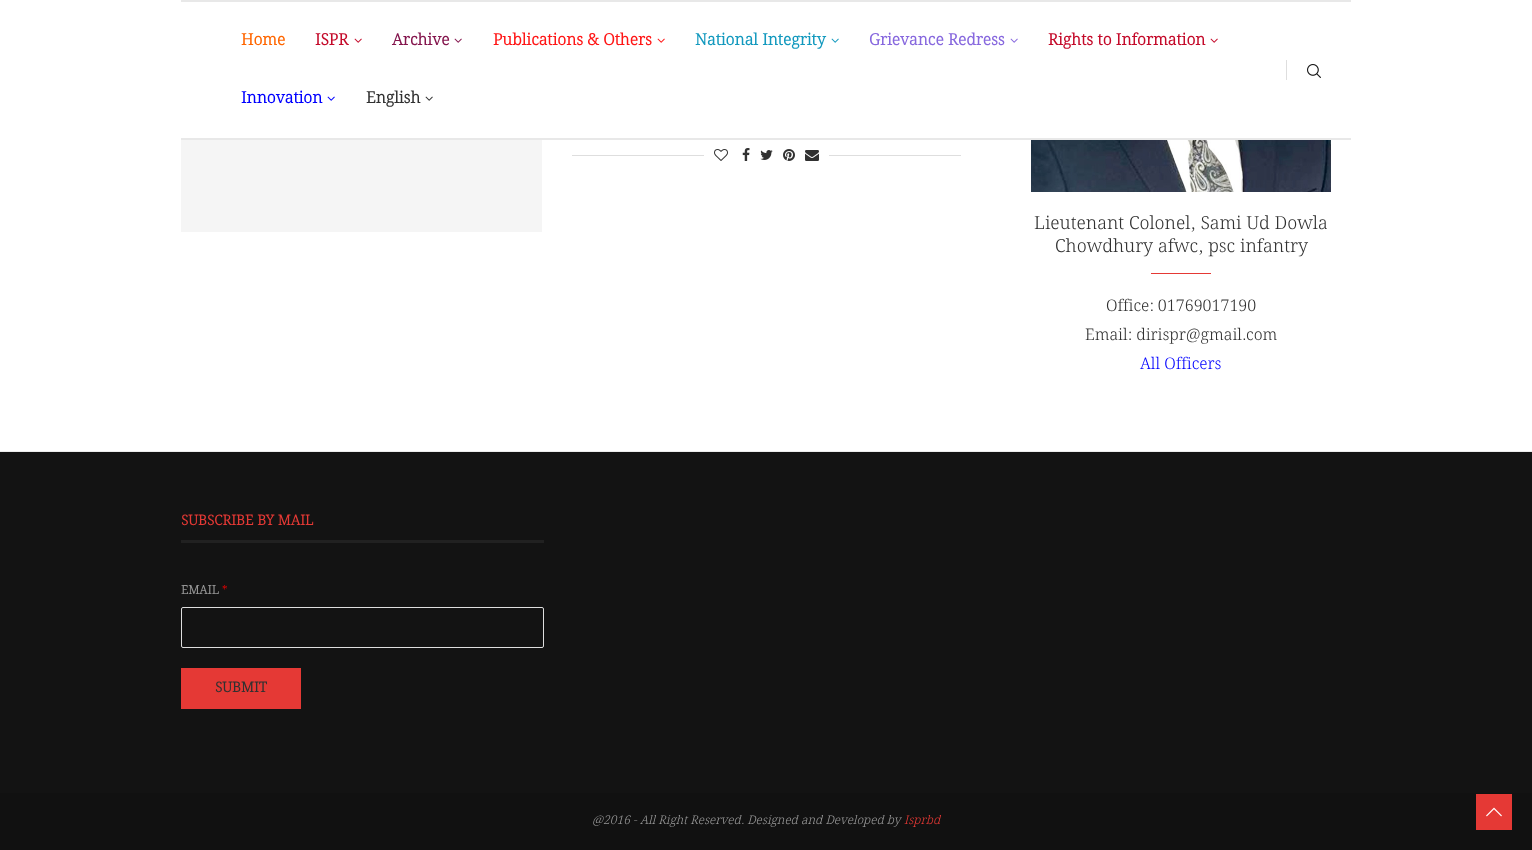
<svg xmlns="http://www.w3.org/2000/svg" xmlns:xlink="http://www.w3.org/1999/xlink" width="1532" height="850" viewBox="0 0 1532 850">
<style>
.cls-1{font:bold 16px Noto Serif Bengali;fill:#ff6600}
.cls-2{font:bold 16px Noto Serif Bengali;fill:#c40a2a}
.cls-3{font:bold 16px Noto Serif Bengali;fill:#84154d}
.cls-4{font:bold 16px Noto Serif Bengali;fill:#ff1616}
.cls-5{font:bold 16px Noto Serif Bengali;fill:#1399be}
.cls-6{font:bold 16px Noto Serif Bengali;fill:#8768de}
.cls-7{font:bold 16px Noto Serif Bengali;fill:#0000ff}
.cls-8{font:bold 16px Noto Serif Bengali;fill:#313131}
.cls-9{font:300 18px Noto Serif Bengali;fill:#313131}
.cls-10{font:300 16px Noto Serif Bengali;fill:#313131}
.cls-11{font:300 16px Noto Serif Bengali;fill:#0000ff}
.cls-12{font:bold 14px Noto Serif Bengali;fill:#e53935}
.cls-13{font:bold 12px Noto Serif Bengali;fill:#939393}
.cls-14{font:300 12px Noto Serif Bengali;fill:#ff0000}
.cls-15{font:bold 14px Noto Serif Bengali;fill:#313131}
.cls-16{font:italic 300 12px Noto Serif Bengali;fill:#999999}
.cls-17{font:italic 300 12px Noto Serif Bengali;fill:#e53935}
</style>
<rect width="100%" height="100%" fill="#ffffff"/>
<rect fill="#e8e8e8" x="181" y="0" width="1170" height="2"/>
<rect fill="#e8e8e8" x="181" y="138" width="1170" height="2"/>
<image xlink:href="image0.png" x="354" y="38" width="8" height="5"/>
<image xlink:href="image1.png" x="454" y="38" width="8" height="5"/>
<image xlink:href="image2.png" x="657" y="38" width="8" height="5"/>
<image xlink:href="image3.png" x="831" y="38" width="8" height="5"/>
<image xlink:href="image4.png" x="1010" y="38" width="8" height="5"/>
<image xlink:href="image0.png" x="1210" y="38" width="8" height="5"/>
<image xlink:href="image5.png" x="327" y="96" width="8" height="5"/>
<image xlink:href="image6.png" x="425" y="96" width="8" height="5"/>
<rect fill="#dedede" x="1286" y="60" width="1" height="20"/>
<image xlink:href="image7.png" x="1307" y="64" width="14" height="14"/>
<rect fill="#f5f5f5" x="181" y="140" width="361" height="92"/>
<rect fill="#dedede" x="572" y="155" width="389" height="1"/>
<rect fill="#ffffff" x="704" y="155" width="125" height="1"/>
<image xlink:href="image8.png" x="714" y="149" width="14" height="12"/>
<image xlink:href="image9.png" x="742" y="148" width="8" height="13"/>
<image xlink:href="image10.png" x="760" y="150" width="13" height="10"/>
<image xlink:href="image11.png" x="783" y="149" width="12" height="12"/>
<image xlink:href="image12.png" x="805" y="150" width="14" height="11"/>
<image xlink:href="image13.png" x="1031" y="140" width="300" height="52"/>
<rect fill="#e53935" x="1151" y="273" width="60" height="1"/>
<rect fill="#131313" x="0" y="452" width="1532" height="341"/>
<rect fill="#ececec" x="0" y="451" width="1532" height="1"/>
<rect fill="#212121" x="181" y="540" width="363" height="3"/>
<rect fill="none" stroke="#dedede" x="181.5" y="607.5" width="362" height="40" rx="1.5"/>
<rect fill="#e53935" x="181" y="668" width="120" height="41"/>
<rect fill="#111111" x="0" y="793" width="1532" height="57"/>
<rect fill="#e53935" x="1476" y="794" width="36" height="36"/>
<image xlink:href="image14.png" x="1486" y="807" width="16" height="10"/>
<text class="cls-1" x="241" y="45">Home</text>
<text class="cls-2" x="315" y="45">ISPR</text>
<text class="cls-3" x="392" y="45">Archive</text>
<text class="cls-4" x="493" y="45">Publications &amp; Others</text>
<text class="cls-5" x="695" y="45">National Integrity</text>
<text class="cls-6" x="869" y="45">Grievance Redress</text>
<text class="cls-2" x="1048" y="45">Rights to Information</text>
<text class="cls-7" x="241" y="103">Innovation</text>
<text class="cls-8" x="366" y="103">English</text>
<text class="cls-9" x="1034" y="229">Lieutenant Colonel, Sami Ud Dowla</text>
<text class="cls-9" x="1055" y="252">Chowdhury afwc, psc infantry</text>
<text class="cls-10" x="1106" y="311">Office: 01769017190</text>
<text class="cls-10" x="1085" y="340">Email: dirispr@gmail.com</text>
<text class="cls-11" x="1140" y="369">All Officers</text>
<text class="cls-12" x="181" y="525">SUBSCRIBE BY MAIL</text>
<text class="cls-13" x="181" y="594">EMAIL</text>
<text class="cls-14" x="222" y="594">*</text>
<text class="cls-15" x="215" y="692">SUBMIT</text>
<text class="cls-16" x="592" y="824">@2016 - All Right Reserved. Designed and Developed by</text>
<text class="cls-17" x="904" y="824">Isprbd</text>
</svg>
